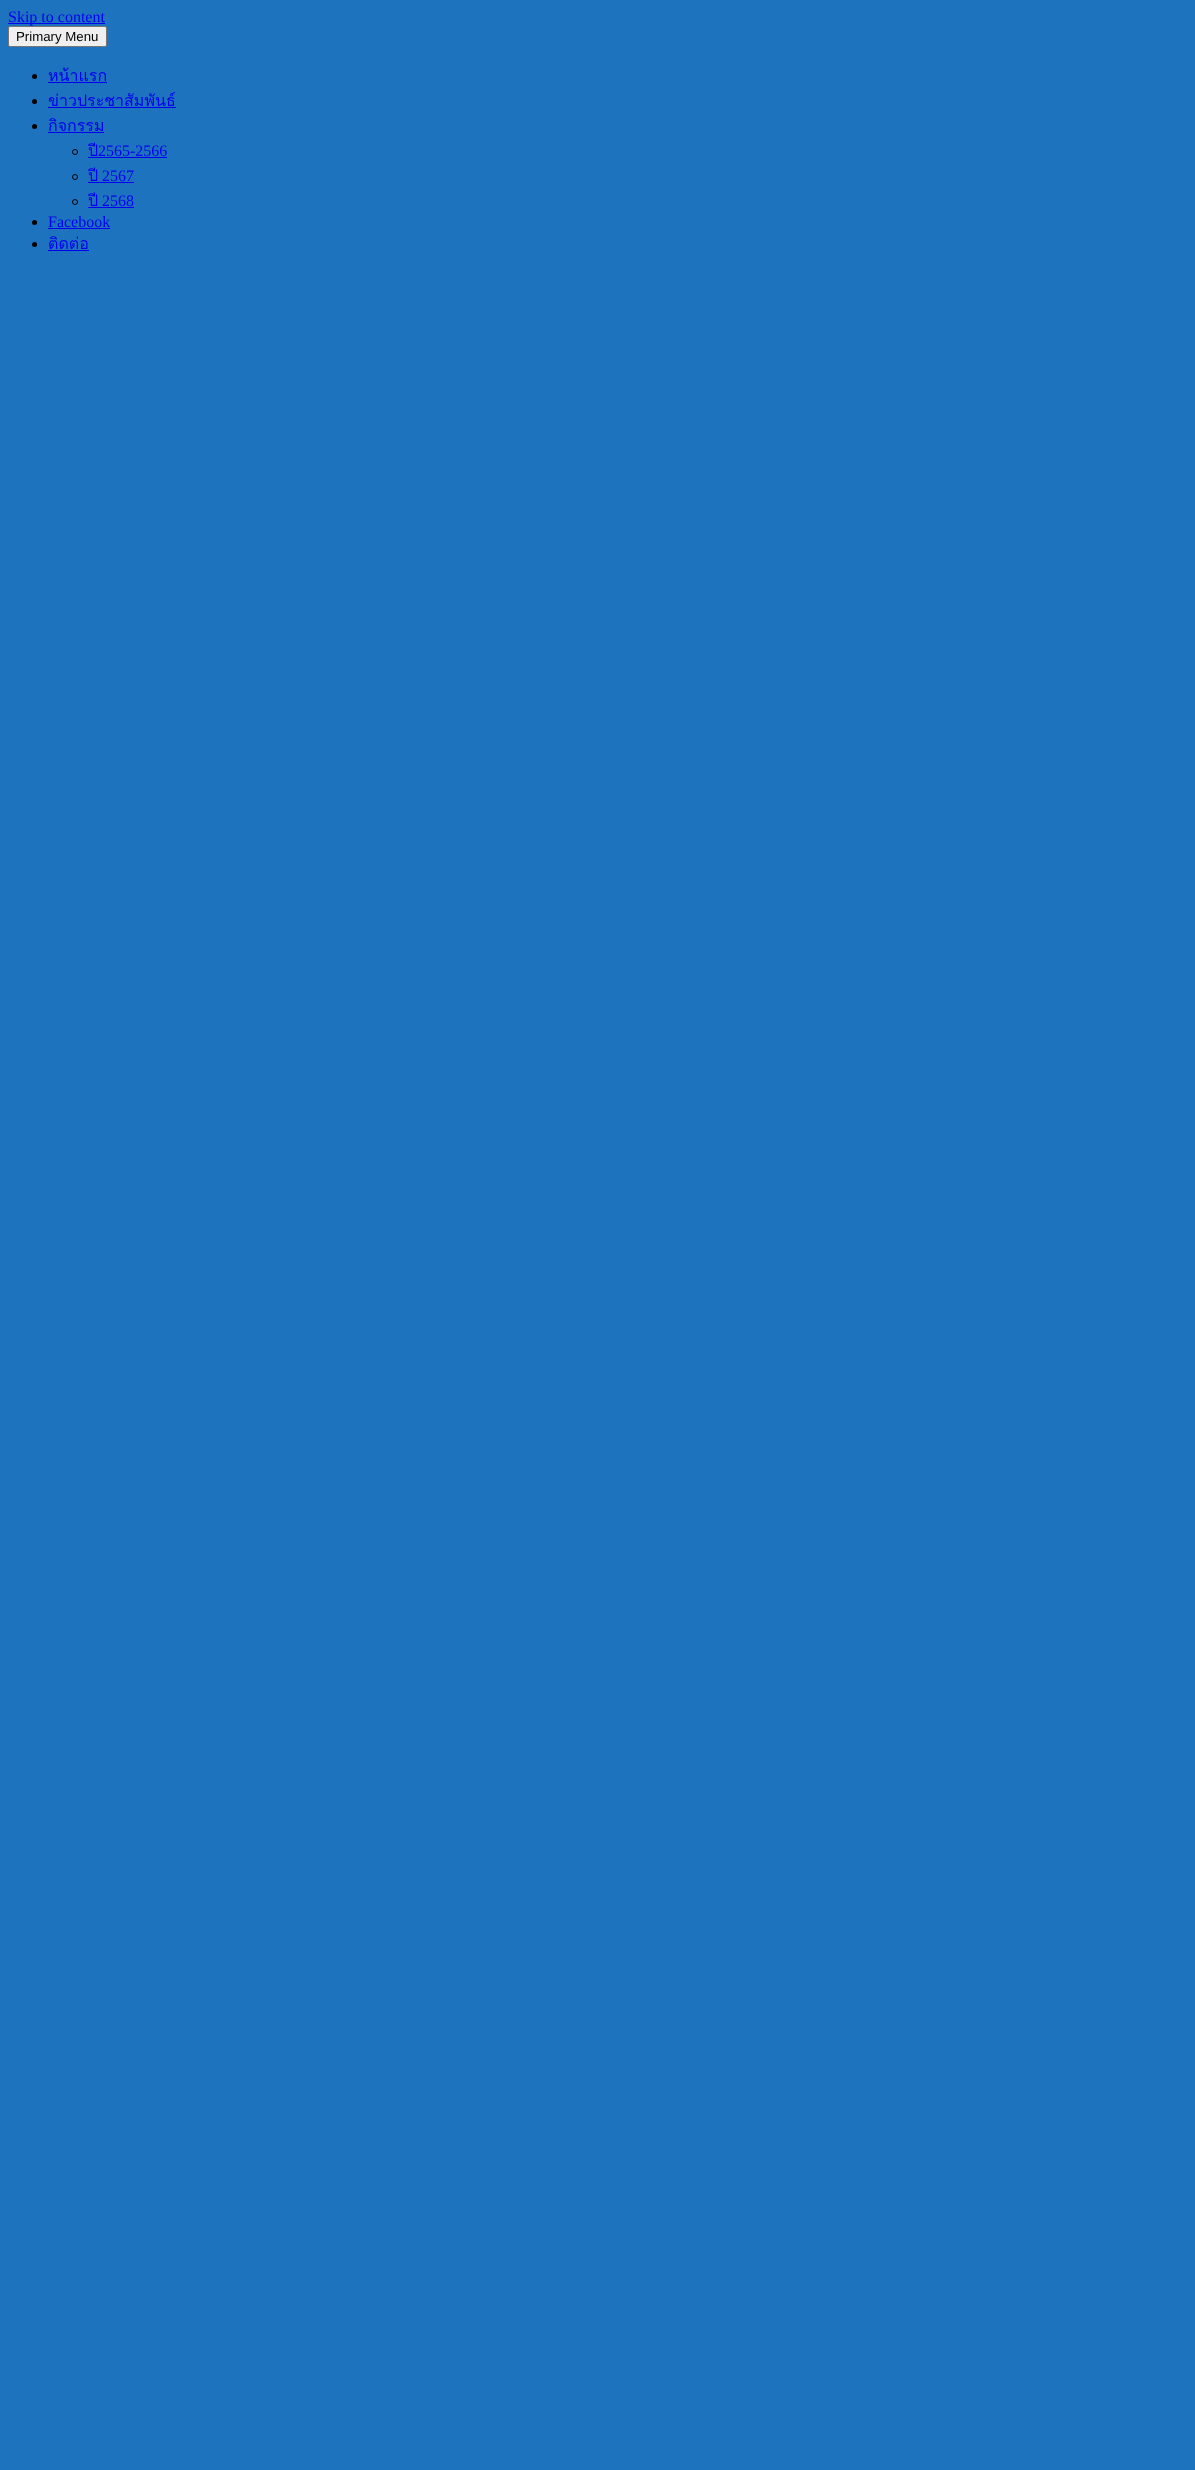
<svg xmlns="http://www.w3.org/2000/svg" xmlns:xlink="http://www.w3.org/1999/xlink" width="1195" height="2470" viewBox="0 0 1195 2470">
<style>
.cls-1{font:16px Liberation Serif;fill:#0000ee}
.cls-2{font:13.25px Liberation Sans;fill:#000000}
.cls-3{font:16px Loma;fill:#0000ee}
</style>
<rect width="100%" height="100%" fill="#1e73be"/>
<rect fill="#0000ee" x="8" y="23" width="97" height="1"/>
<rect fill="#efefef" stroke="#767676" x="8.5" y="26.5" width="98" height="20" rx="1.5"/>
<circle fill="#000000" cx="34.5" cy="76.5" r="2.5"/>
<rect fill="#0000ee" x="48" y="82" width="59" height="1"/>
<circle fill="#000000" cx="34.5" cy="101.5" r="2.5"/>
<rect fill="#0000ee" x="48" y="107" width="128" height="1"/>
<circle fill="#000000" cx="34.5" cy="126.5" r="2.5"/>
<rect fill="#0000ee" x="48" y="132" width="56" height="1"/>
<circle fill="none" stroke="#000000" cx="75" cy="152" r="2.5"/>
<rect fill="#0000ee" x="88" y="157" width="79" height="1"/>
<circle fill="none" stroke="#000000" cx="75" cy="177" r="2.5"/>
<rect fill="#0000ee" x="88" y="182" width="46" height="1"/>
<circle fill="none" stroke="#000000" cx="75" cy="202" r="2.5"/>
<rect fill="#0000ee" x="88" y="207" width="46" height="1"/>
<circle fill="#000000" cx="34.5" cy="222.5" r="2.5"/>
<rect fill="#0000ee" x="48" y="228" width="62" height="1"/>
<circle fill="#000000" cx="34.5" cy="244.5" r="2.5"/>
<rect fill="#0000ee" x="48" y="250" width="41" height="1"/>
<text class="cls-1" x="8" y="22">Skip to content</text>
<text class="cls-2" x="16" y="41">Primary Menu</text>
<text class="cls-3"><tspan x="48" y="81">หน้าแรก</tspan><tspan x="48" y="106">ข่าวประชาสัมพันธ์</tspan><tspan x="48" y="131">กิจกรรม</tspan></text>
<text class="cls-3" x="88" y="156">ปี</text>
<text class="cls-1" x="98" y="156">2565-2566</text>
<text class="cls-3" x="88" y="181">ปี</text>
<text class="cls-1" x="102" y="181">2567</text>
<text class="cls-3" x="88" y="206">ปี</text>
<text class="cls-1" x="102" y="206">2568</text>
<text class="cls-1" x="48" y="227">Facebook</text>
<text class="cls-3" x="48" y="249">ติดต่อ</text>
</svg>
